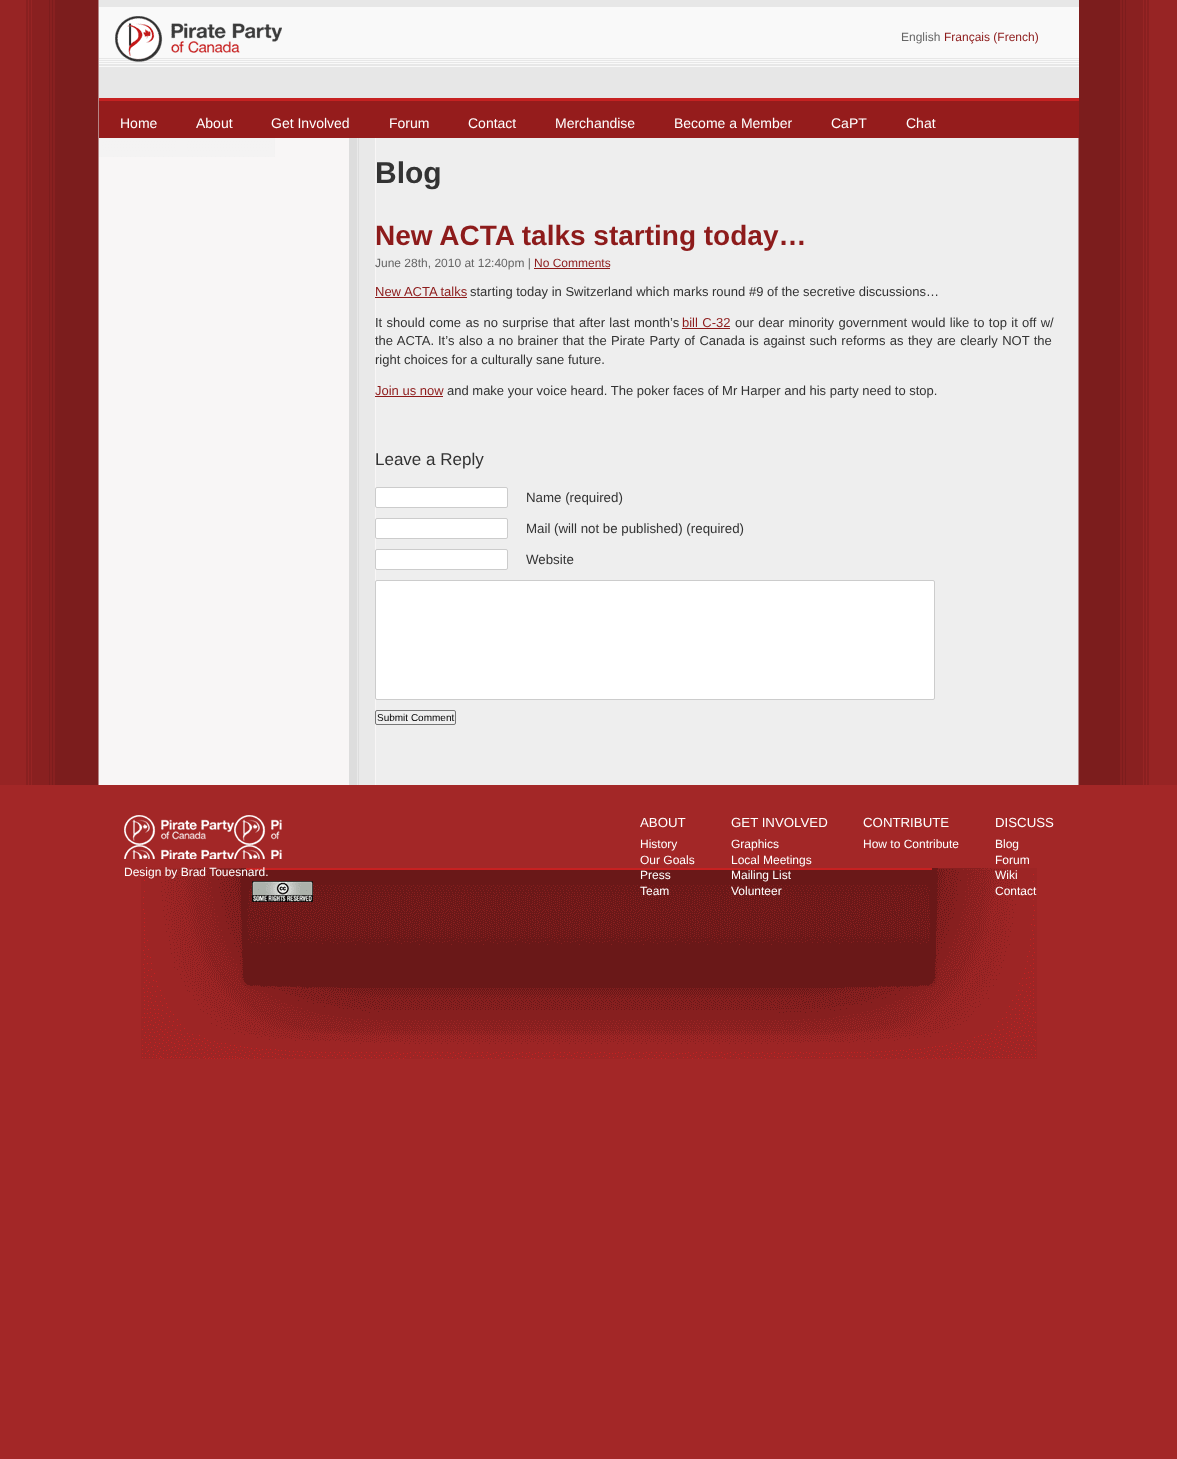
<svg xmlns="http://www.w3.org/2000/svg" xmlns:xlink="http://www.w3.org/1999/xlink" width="1177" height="1459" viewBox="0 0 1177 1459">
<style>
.cls-1{font:12px Liberation Sans;fill:#666666}
.cls-2{font:12px Liberation Sans;fill:#8d1b1b}
.cls-3{font:14px Liberation Sans;fill:#ffffff}
.cls-4{font:bold 30px Liberation Sans;fill:#333333}
.cls-5{font:bold 28px Liberation Sans;fill:#8d1b1b}
.cls-6{font:13px Liberation Sans;fill:#8d1b1b}
.cls-7{font:13px Liberation Sans;fill:#333333}
.cls-8{font:17px Liberation Sans;fill:#333333}
.cls-9{font:13.3px Liberation Sans;fill:#333333}
.cls-10{font:10px Liberation Sans;fill:#000000}
.cls-11{font:12px Liberation Sans;fill:#ffffff}
.cls-12{font:13.25px Liberation Sans;fill:#ffffff}
</style>
<rect width="100%" height="100%" fill="#a32727"/>
<image xlink:href="image0.png" x="141" y="868" width="896" height="191"/>
<image xlink:href="image1.png" x="0" y="0" width="1177" height="785"/>
<image xlink:href="image2.png" x="99" y="0" width="980" height="98"/>
<image xlink:href="image3.png" x="115" y="16" width="167" height="46"/>
<image xlink:href="image4.png" x="99" y="98" width="980" height="40"/>
<image xlink:href="image5.png" x="99" y="138" width="277" height="647"/>
<image xlink:href="image6.png" x="99" y="138" width="176" height="19"/>
<rect fill="#8d1b1b" x="534" y="268" width="76" height="1"/>
<rect fill="#8d1b1b" x="375" y="297" width="92" height="1"/>
<rect fill="#8d1b1b" x="682" y="328" width="48" height="1"/>
<rect fill="#8d1b1b" x="375" y="396" width="68" height="1"/>
<rect fill="#ffffff" stroke="#cccccc" x="375.5" y="487.5" width="132" height="20" rx="1.5"/>
<rect fill="#ffffff" stroke="#cccccc" x="375.5" y="518.5" width="132" height="20" rx="1.5"/>
<rect fill="#ffffff" stroke="#cccccc" x="375.5" y="549.5" width="132" height="20" rx="1.5"/>
<rect fill="#ffffff" stroke="#cccccc" x="375.5" y="580.5" width="559" height="119" rx="1.5"/>
<rect fill="#efefef" stroke="#767676" x="375.5" y="710.5" width="80" height="14" rx="1.5"/>
<image xlink:href="image7.png" x="124" y="815" width="158" height="44"/>
<image xlink:href="image8.png" x="252" y="881" width="61" height="21"/>
<text class="cls-1" x="901" y="41">English</text>
<text class="cls-2" x="944" y="41">Français (French)</text>
<text class="cls-3" x="120" y="128">Home</text>
<text class="cls-3" x="196" y="128">About</text>
<text class="cls-3" x="271" y="128">Get Involved</text>
<text class="cls-3" x="389" y="128">Forum</text>
<text class="cls-3" x="468" y="128">Contact</text>
<text class="cls-3" x="555" y="128">Merchandise</text>
<text class="cls-3" x="674" y="128">Become a Member</text>
<text class="cls-3" x="831" y="128">CaPT</text>
<text class="cls-3" x="906" y="128">Chat</text>
<text class="cls-4" x="375" y="183">Blog</text>
<text class="cls-5" x="375" y="245">New ACTA talks starting today…</text>
<text class="cls-1" x="375" y="267">June 28th, 2010 at 12:40pm |</text>
<text class="cls-2" x="534" y="267">No Comments</text>
<text class="cls-6" x="375" y="296">New ACTA talks</text>
<text class="cls-7" x="470" y="296">starting today in Switzerland which marks round #9 of the secretive discussions…</text>
<text class="cls-7" x="375" y="327" word-spacing="0.75">It should come as no surprise that after last month’s</text>
<text class="cls-6" x="682" y="327" word-spacing="0.75">bill C-32</text>
<text class="cls-7" x="735" y="327" word-spacing="0.75">our dear minority government would like to top it off w/</text>
<text class="cls-7" x="375" y="345" word-spacing="0.8">the ACTA.</text>
<text class="cls-7" x="438" y="345" word-spacing="0.8">It’s also a no brainer that the Pirate Party of Canada is against such reforms as they are clearly NOT the</text>
<text class="cls-7" x="375" y="364">right choices for a culturally sane future.</text>
<text class="cls-6" x="375" y="395">Join us now</text>
<text class="cls-7" x="447" y="395">and make your voice heard. The poker faces of Mr Harper and his party need to stop.</text>
<text class="cls-8" x="375" y="465">Leave a Reply</text>
<text class="cls-9" x="526" y="502">Name (required)</text>
<text class="cls-9" x="526" y="533">Mail (will not be published) (required)</text>
<text class="cls-9" x="526" y="564">Website</text>
<text class="cls-10" x="377" y="721">Submit Comment</text>
<text class="cls-11" x="124" y="876">Design by Brad Touesnard.</text>
<text class="cls-12" x="640" y="827">ABOUT</text>
<text class="cls-11"><tspan x="640" y="848">History</tspan><tspan x="640" y="864">Our Goals</tspan><tspan x="640" y="879">Press</tspan><tspan x="640" y="895">Team</tspan></text>
<text class="cls-12" x="731" y="827">GET INVOLVED</text>
<text class="cls-11"><tspan x="731" y="848">Graphics</tspan><tspan x="731" y="864">Local Meetings</tspan><tspan x="731" y="879">Mailing List</tspan><tspan x="731" y="895">Volunteer</tspan></text>
<text class="cls-12" x="863" y="827">CONTRIBUTE</text>
<text class="cls-11" x="863" y="848">How to Contribute</text>
<text class="cls-12" x="995" y="827">DISCUSS</text>
<text class="cls-11"><tspan x="995" y="848">Blog</tspan><tspan x="995" y="864">Forum</tspan><tspan x="995" y="879">Wiki</tspan><tspan x="995" y="895">Contact</tspan></text>
</svg>
